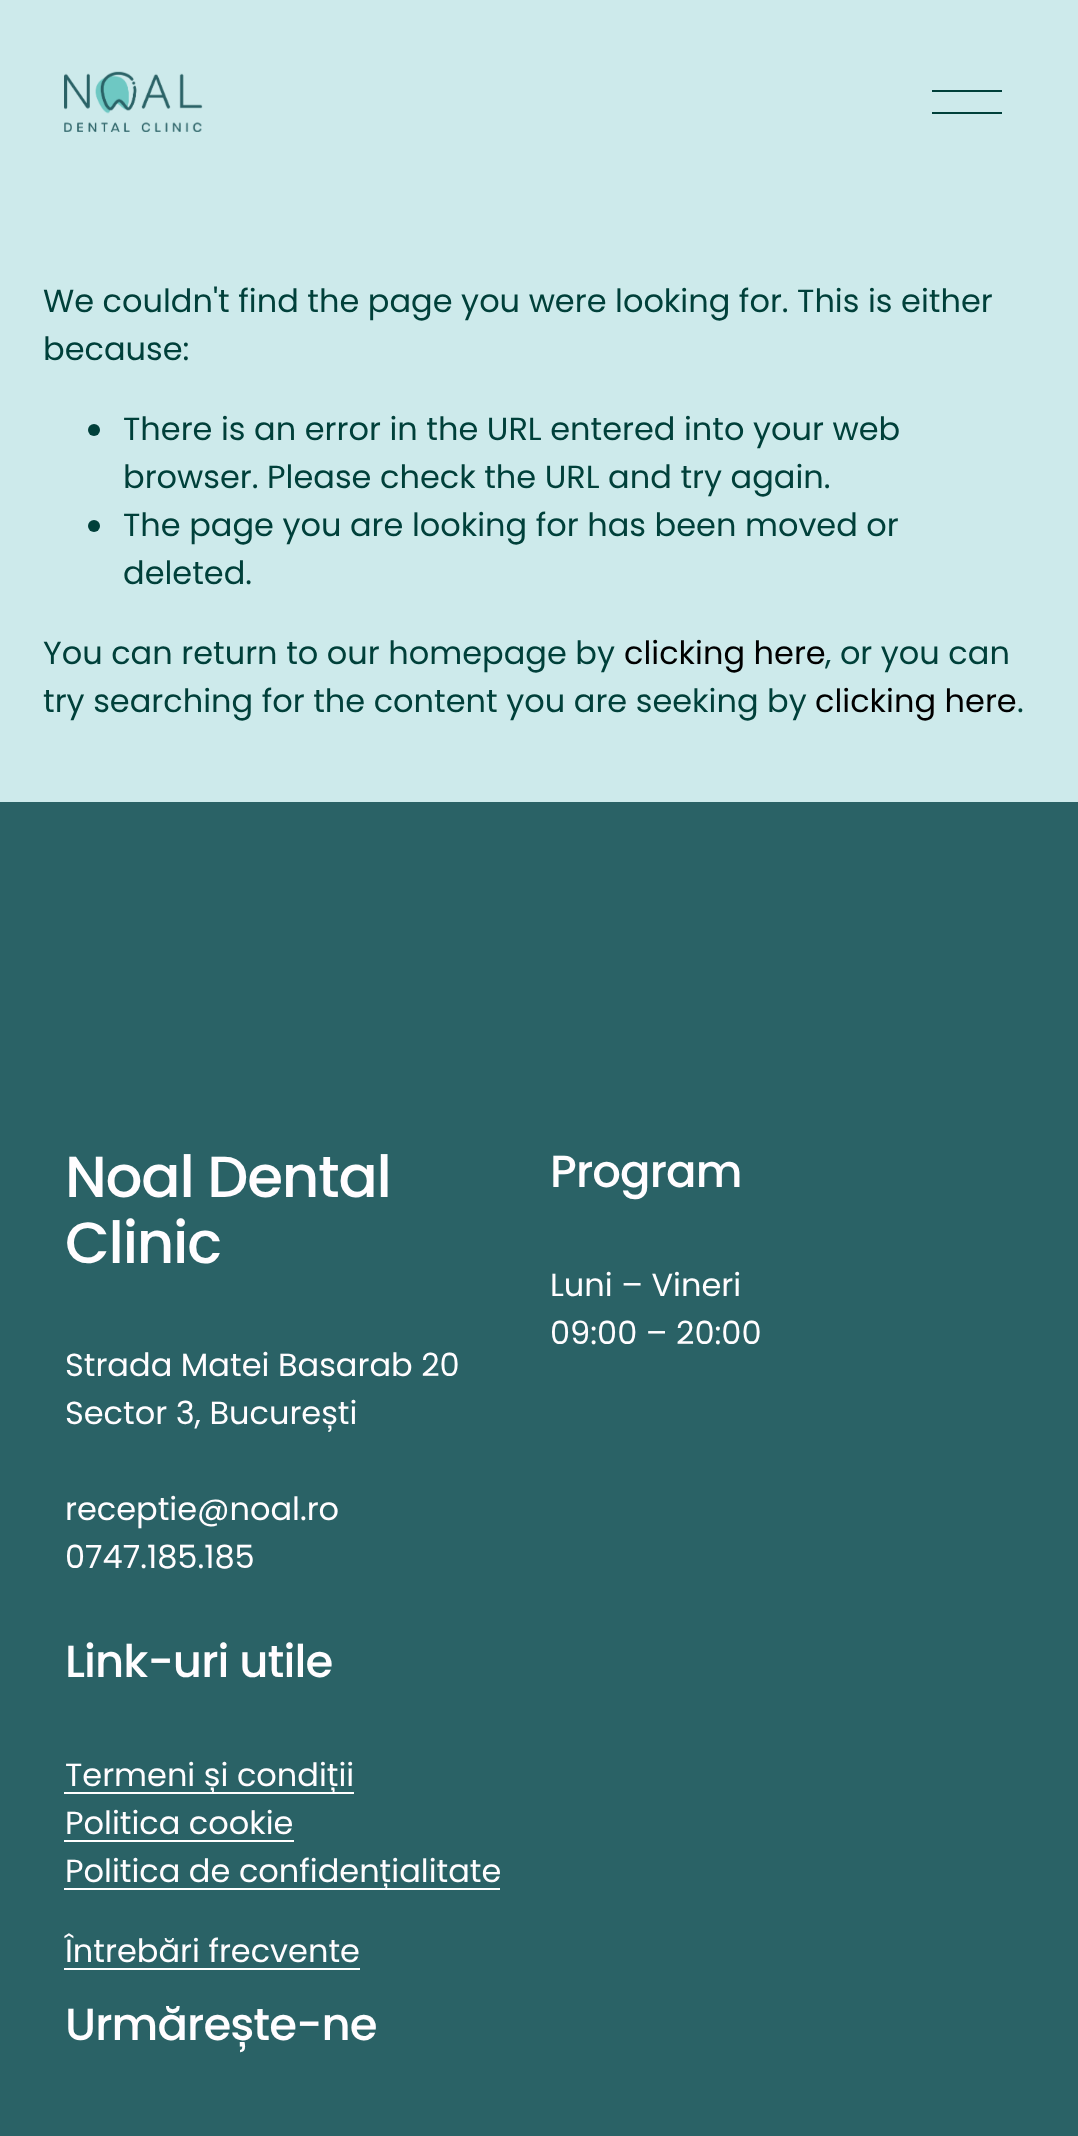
<svg xmlns="http://www.w3.org/2000/svg" xmlns:xlink="http://www.w3.org/1999/xlink" width="1078" height="2136" viewBox="0 0 1078 2136">
<style>
.cls-1{font:32px Poppins;fill:#00403a}
.cls-2{font:32px Poppins;fill:#000000}
.cls-3{font:500 58px Poppins;letter-spacing:-1.25px;fill:#fffdff}
.cls-4{font:32px Poppins;fill:#fffdff}
.cls-5{font:500 45px Poppins;letter-spacing:-0.9px;fill:#fffdff}
</style>
<rect width="100%" height="100%" fill="#cdeaeb"/>
<image xlink:href="image0.png" x="64" y="71" width="139" height="61"/>
<rect fill="#00403a" x="932" y="90" width="70" height="2"/>
<rect fill="#00403a" x="932" y="112" width="70" height="2"/>
<circle fill="#00403a" cx="94" cy="430" r="6"/>
<circle fill="#00403a" cx="94" cy="526" r="6"/>
<rect fill="#2a6266" x="0" y="802" width="1078" height="1334"/>
<rect fill="#ffffff" x="64" y="1792" width="290" height="2"/>
<rect fill="#ffffff" x="64" y="1840" width="230" height="2"/>
<rect fill="#ffffff" x="64" y="1888" width="436" height="2"/>
<rect fill="#ffffff" x="64" y="1968" width="296" height="2"/>
<text class="cls-1"><tspan x="43" y="312">We couldn't find the page you were looking for. This is either</tspan><tspan x="43" y="360">because:</tspan></text>
<text class="cls-1"><tspan x="123" y="440">There is an error in the URL entered into your web</tspan><tspan x="123" y="488">browser. Please check the URL and try again.</tspan><tspan x="123" y="536">The page you are looking for has been moved or</tspan><tspan x="123" y="584">deleted.</tspan></text>
<text class="cls-1" x="43" y="664">You can return to our homepage by</text>
<text class="cls-2" x="624" y="664">clicking here</text>
<text class="cls-1" x="825" y="664">, or you can</text>
<text class="cls-1" x="43" y="712">try searching for the content you are seeking by</text>
<text class="cls-2" x="815" y="712">clicking here</text>
<text class="cls-1" x="1017" y="712">.</text>
<text class="cls-3"><tspan x="65" y="1197">Noal Dental</tspan><tspan x="65" y="1263">Clinic</tspan></text>
<text class="cls-4"><tspan x="65" y="1376">Strada Matei Basarab 20</tspan><tspan x="65" y="1424">Sector 3, București</tspan></text>
<text class="cls-4"><tspan x="65" y="1520">receptie@noal.ro</tspan><tspan x="65" y="1568">0747.185.185</tspan></text>
<text class="cls-5" x="550" y="1187">Program</text>
<text class="cls-4"><tspan x="550" y="1296">Luni – Vineri</tspan><tspan x="550" y="1344">09:00 – 20:00</tspan></text>
<text class="cls-5" x="65" y="1677">Link-uri utile</text>
<text class="cls-4"><tspan x="65" y="1786">Termeni și condiții</tspan><tspan x="65" y="1834">Politica cookie</tspan><tspan x="65" y="1882">Politica de confidențialitate</tspan></text>
<text class="cls-4" x="65" y="1962">Întrebări frecvente</text>
<text class="cls-5" x="65" y="2040">Urmărește-ne</text>
</svg>
